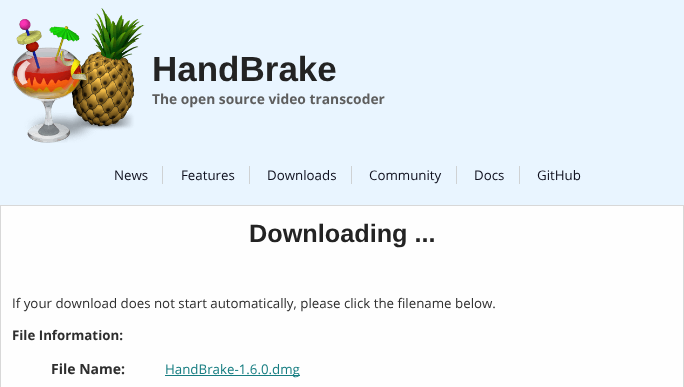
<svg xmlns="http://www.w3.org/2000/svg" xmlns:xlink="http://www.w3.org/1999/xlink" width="684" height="387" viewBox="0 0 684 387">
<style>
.cls-1{font:bold 35px Liberation Sans;fill:#232323}
.cls-2{font:bold 13.8px Open Sans;fill:#5e5e5e}
.cls-3{font:13.3px Open Sans;fill:#0e0f1d}
.cls-4{font:bold 25.25px Liberation Sans;fill:#232323}
.cls-5{font:13.3px Open Sans;fill:#2e2e2e}
.cls-6{font:bold 13.3px Open Sans;fill:#2e2e2e}
.cls-7{font:bold 14px Open Sans;fill:#2e2e2e}
.cls-8{font:13.3px Open Sans;fill:#167d81}
</style>
<rect width="100%" height="100%" fill="#e9f5ff"/>
<image xlink:href="image0.png" x="11" y="8" width="134" height="135"/>
<rect fill="#cfd2d4" x="162" y="166" width="1" height="18"/>
<rect fill="#cfd2d4" x="249" y="166" width="1" height="18"/>
<rect fill="#cfd2d4" x="351" y="166" width="1" height="18"/>
<rect fill="#cfd2d4" x="456" y="166" width="1" height="18"/>
<rect fill="#cfd2d4" x="519" y="166" width="1" height="18"/>
<rect fill="#fefefe" stroke="#d8d8d8" x="0.5" y="205.5" width="683" height="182"/>
<rect fill="#167d81" x="165" y="375" width="135" height="1"/>
<text class="cls-1" x="152" y="81">HandBrake</text>
<text class="cls-2" x="152" y="104">The open source video transcoder</text>
<text class="cls-3" x="114" y="180">News</text>
<text class="cls-3" x="181" y="180">Features</text>
<text class="cls-3" x="267" y="180">Downloads</text>
<text class="cls-3" x="369" y="180">Community</text>
<text class="cls-3" x="474" y="180">Docs</text>
<text class="cls-3" x="537" y="180">GitHub</text>
<text class="cls-4" x="249" y="242">Downloading ...</text>
<text class="cls-5" x="12" y="308">If your download does not start automatically, please click the filename below.</text>
<text class="cls-6" x="12" y="340">File Information:</text>
<text class="cls-7" x="51" y="374">File Name:</text>
<text class="cls-8" x="165" y="374">HandBrake-1.6.0.dmg</text>
</svg>
